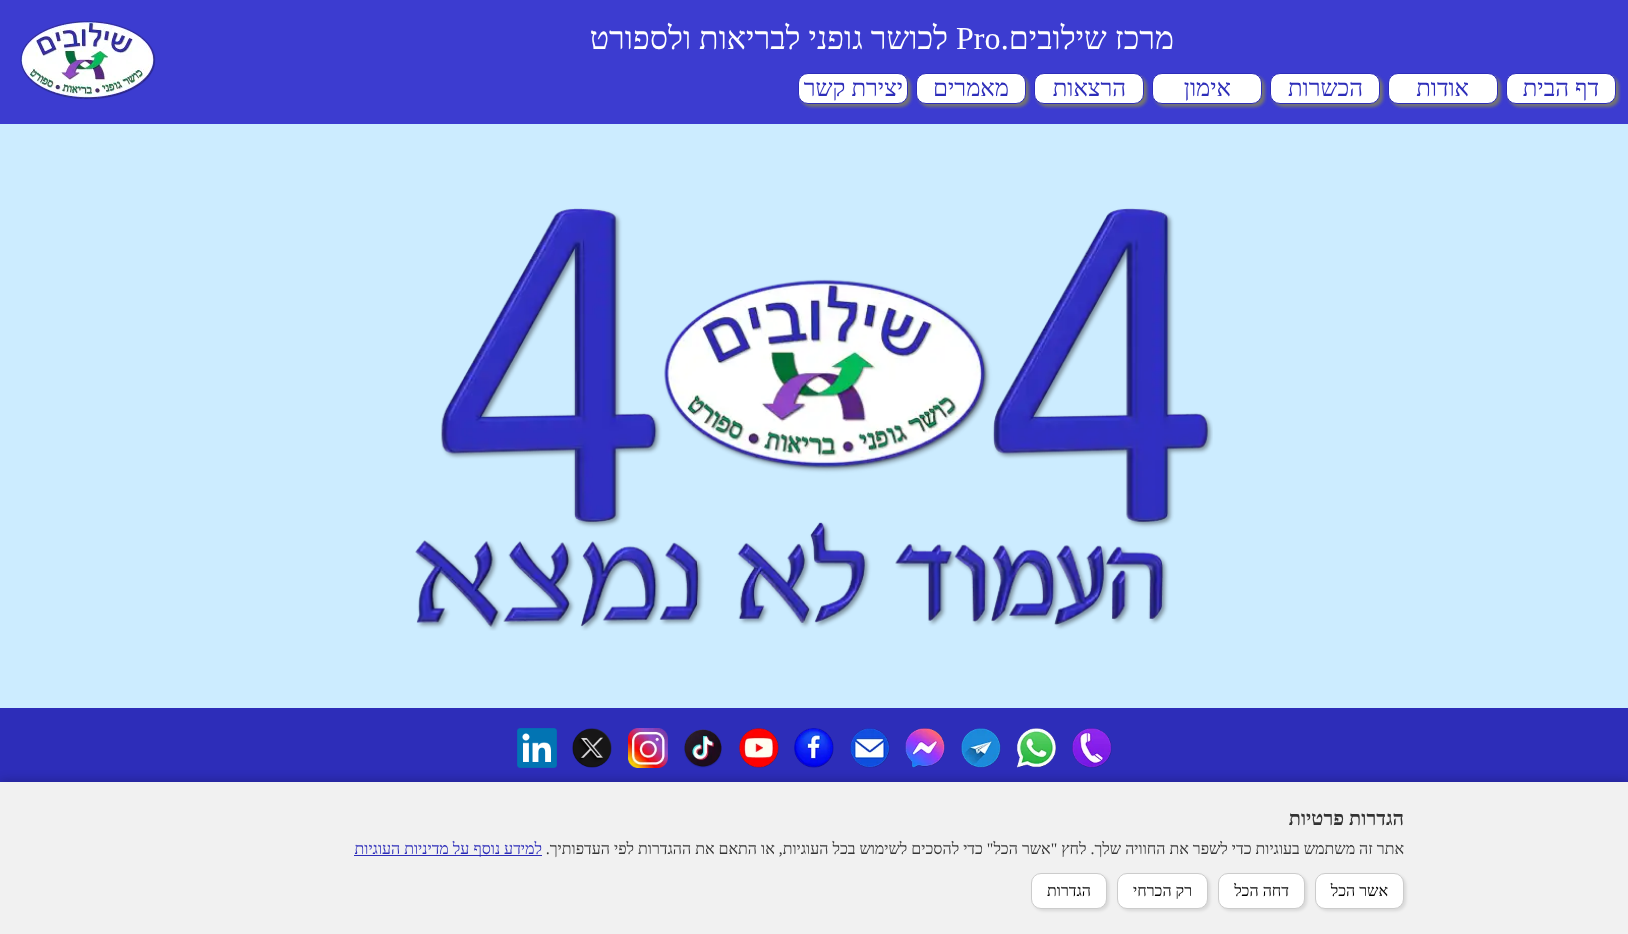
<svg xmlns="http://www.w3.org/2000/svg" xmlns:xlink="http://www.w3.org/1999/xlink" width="1628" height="934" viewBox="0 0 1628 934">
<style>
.cls-1{font:32px Liberation Serif;direction:rtl;fill:#ffffff}
.cls-2{font:32px Liberation Serif;fill:#ffffff}
.cls-3{font:24px Liberation Serif;direction:rtl;fill:#2d2db9}
.cls-4{font:bold 20px Liberation Serif;direction:rtl;fill:#333333}
.cls-5{font:16px Liberation Serif;direction:rtl;fill:#333333}
.cls-6{font:16px Liberation Serif;direction:rtl;fill:#2d2db9}
.cls-7{font:16px Liberation Serif;direction:rtl;fill:#000000}
</style>
<rect width="100%" height="100%" fill="#ccecff"/>
<rect fill="#3c3cd0" x="0" y="0" width="1628" height="124"/>
<image xlink:href="image0.png" x="20" y="21" width="136" height="79"/>
<rect fill="#737373" filter="blur(1.5px)" x="1509" y="76" width="110" height="31" rx="10"/>
<rect fill="#ffffff" stroke="#2d2db9" x="1506.5" y="73.5" width="109" height="30" rx="9.5"/>
<rect fill="#737373" filter="blur(1.5px)" x="1391" y="76" width="110" height="31" rx="10"/>
<rect fill="#ffffff" stroke="#2d2db9" x="1388.5" y="73.5" width="109" height="30" rx="9.5"/>
<rect fill="#737373" filter="blur(1.5px)" x="1273" y="76" width="110" height="31" rx="10"/>
<rect fill="#ffffff" stroke="#2d2db9" x="1270.5" y="73.5" width="109" height="30" rx="9.5"/>
<rect fill="#737373" filter="blur(1.5px)" x="1155" y="76" width="110" height="31" rx="10"/>
<rect fill="#ffffff" stroke="#2d2db9" x="1152.5" y="73.5" width="109" height="30" rx="9.5"/>
<rect fill="#737373" filter="blur(1.5px)" x="1037" y="76" width="110" height="31" rx="10"/>
<rect fill="#ffffff" stroke="#2d2db9" x="1034.5" y="73.5" width="109" height="30" rx="9.5"/>
<rect fill="#737373" filter="blur(1.5px)" x="919" y="76" width="110" height="31" rx="10"/>
<rect fill="#ffffff" stroke="#2d2db9" x="916.5" y="73.5" width="109" height="30" rx="9.5"/>
<rect fill="#737373" filter="blur(1.5px)" x="801" y="76" width="110" height="31" rx="10"/>
<rect fill="#ffffff" stroke="#2d2db9" x="798.5" y="73.5" width="109" height="30" rx="9.5"/>
<image xlink:href="image1.png" x="415" y="208" width="798" height="423"/>
<rect fill="#2d2db9" x="0" y="708" width="1628" height="74"/>
<image xlink:href="image2.png" x="1072" y="728" width="40" height="40"/>
<image xlink:href="image3.png" x="1016" y="728" width="40" height="40"/>
<image xlink:href="image4.png" x="961" y="728" width="40" height="40"/>
<image xlink:href="image5.png" x="905" y="728" width="40" height="40"/>
<image xlink:href="image6.png" x="850" y="728" width="40" height="40"/>
<image xlink:href="image7.png" x="794" y="728" width="40" height="40"/>
<image xlink:href="image8.png" x="739" y="728" width="40" height="40"/>
<image xlink:href="image9.png" x="684" y="729" width="38" height="39"/>
<image xlink:href="image10.png" x="628" y="728" width="40" height="40"/>
<image xlink:href="image11.png" x="572" y="728" width="40" height="40"/>
<image xlink:href="image12.png" x="517" y="728" width="40" height="40"/>
<rect fill="#000000" fill-opacity="0.2" filter="blur(5px)" x="0" y="780" width="1628" height="152"/>
<rect fill="#f1f1f1" x="0" y="782" width="1628" height="152"/>
<rect fill="#2d2db9" x="354" y="855" width="188" height="1"/>
<rect fill="#000000" fill-opacity="0.1" filter="blur(1.5px)" x="1317" y="875" width="89" height="36" rx="10"/>
<rect fill="#ffffff" stroke="#cccccc" x="1315.5" y="873.5" width="88" height="35" rx="9.5"/>
<rect fill="#000000" fill-opacity="0.1" filter="blur(1.5px)" x="1220" y="875" width="87" height="36" rx="10"/>
<rect fill="#ffffff" stroke="#cccccc" x="1218.5" y="873.5" width="86" height="35" rx="9.5"/>
<rect fill="#000000" fill-opacity="0.1" filter="blur(1.5px)" x="1119" y="875" width="91" height="36" rx="10"/>
<rect fill="#ffffff" stroke="#cccccc" x="1117.5" y="873.5" width="90" height="35" rx="9.5"/>
<rect fill="#000000" fill-opacity="0.1" filter="blur(1.5px)" x="1033" y="875" width="76" height="36" rx="10"/>
<rect fill="#ffffff" stroke="#cccccc" x="1031.5" y="873.5" width="75" height="35" rx="9.5"/>
<text class="cls-1" x="1174" y="49">מרכז שילובים.</text>
<text class="cls-2" x="956" y="49">Pro</text>
<text class="cls-1" x="948" y="49">לכושר גופני לבריאות ולספורט</text>
<text class="cls-3" x="1599" y="96">דף הבית</text>
<text class="cls-3" x="1469" y="96">אודות</text>
<text class="cls-3" x="1363" y="96">הכשרות</text>
<text class="cls-3" x="1231" y="96">אימון</text>
<text class="cls-3" x="1126" y="96">הרצאות</text>
<text class="cls-3" x="1009" y="96">מאמרים</text>
<text class="cls-3" x="903" y="96">יצירת קשר</text>
<text class="cls-4" x="1404" y="825">הגדרות פרטיות</text>
<text class="cls-5" x="1404" y="854">אתר זה משתמש בעוגיות כדי לשפר את החוויה שלך. לחץ "אשר הכל" כדי להסכים לשימוש בכל העוגיות, או התאם את ההגדרות לפי העדפותיך.</text>
<text class="cls-6" x="542" y="854">למידע נוסף על מדיניות העוגיות</text>
<text class="cls-7" x="1388" y="896">אשר הכל</text>
<text class="cls-7" x="1289" y="896">דחה הכל</text>
<text class="cls-7" x="1192" y="896">רק הכרחי</text>
<text class="cls-7" x="1091" y="896">הגדרות</text>
</svg>
